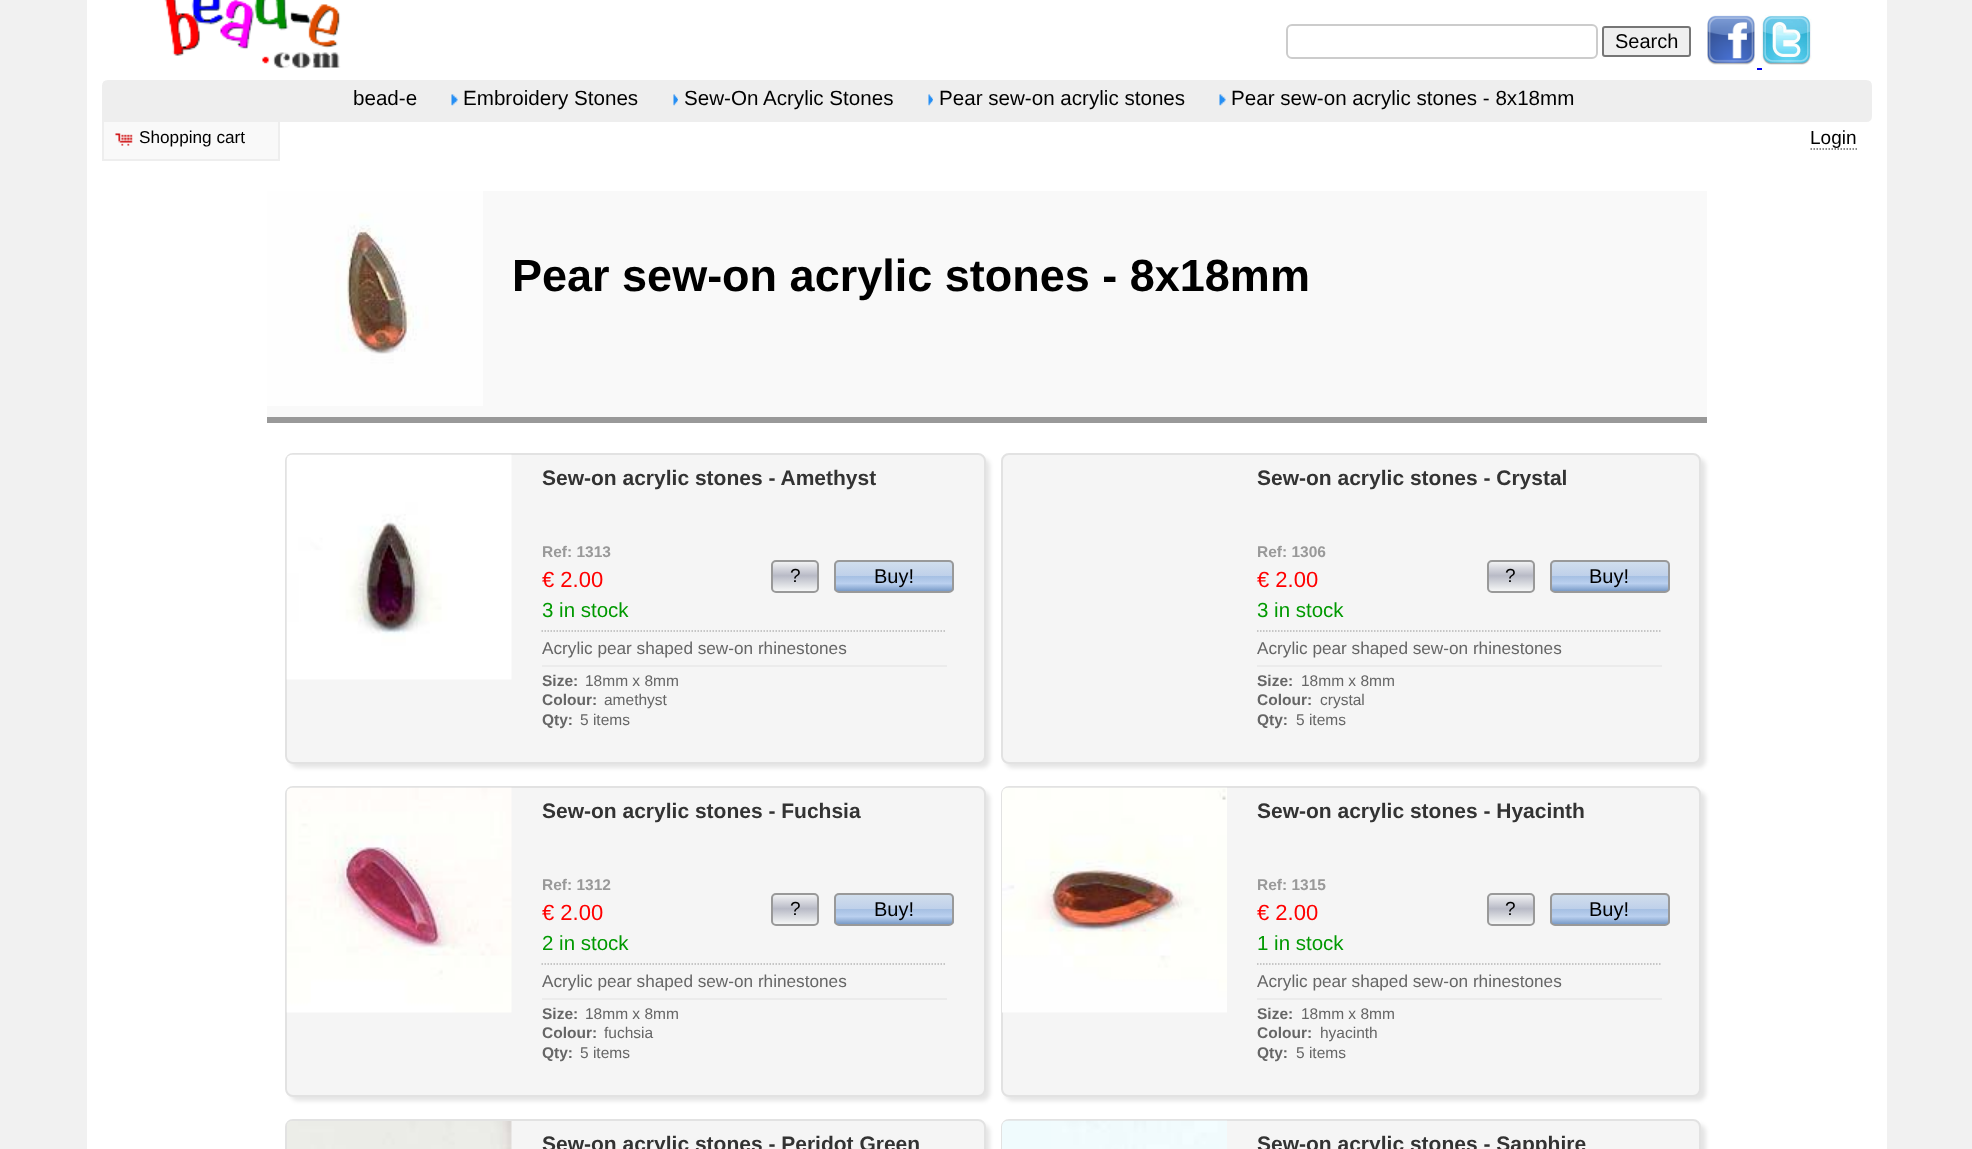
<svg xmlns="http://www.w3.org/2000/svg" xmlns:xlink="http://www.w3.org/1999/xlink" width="1972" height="1149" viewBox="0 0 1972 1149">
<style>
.cls-1{font:20px Liberation Sans;fill:#000000}
.cls-2{font:20.6px Liberation Sans;fill:#000000}
.cls-3{font:17.2px Liberation Sans;fill:#000000}
.cls-4{font:19px Liberation Sans;fill:#000000}
.cls-5{font:bold 45px Liberation Sans;fill:#000000}
.cls-6{font:bold 21px Liberation Sans;fill:#333333}
.cls-7{font:bold 15.5px Liberation Sans;fill:#999999}
.cls-8{font:22px Liberation Sans;fill:#ff0000}
.cls-9{font:20.5px Liberation Sans;fill:#009900}
.cls-10{font:17.2px Liberation Sans;fill:#666666}
.cls-11{font:bold 15.5px Liberation Sans;fill:#666666}
.cls-12{font:15.5px Liberation Sans;fill:#666666}
</style>
<defs>
<clipPath id="clip1"><rect x="771" y="560" width="48" height="33" rx="5"/></clipPath>
<linearGradient id="g1" gradientUnits="userSpaceOnUse" x1="795" y1="561" x2="795" y2="591"><stop offset="0" stop-color="#f5f6f6"/><stop offset="0.21" stop-color="#dbdce2"/><stop offset="0.49" stop-color="#b8bac6"/><stop offset="0.8" stop-color="#dddfe3"/><stop offset="1" stop-color="#f5f6f6"/></linearGradient>
<clipPath id="clip2"><rect x="834" y="560" width="120" height="33" rx="5"/></clipPath>
<linearGradient id="g2" gradientUnits="userSpaceOnUse" x1="894" y1="561" x2="894" y2="591"><stop offset="0" stop-color="#d2dfed"/><stop offset="0.26" stop-color="#c8d7eb"/><stop offset="0.51" stop-color="#bed0ea"/><stop offset="0.51" stop-color="#a6c0e3"/><stop offset="0.62" stop-color="#afc7e8"/><stop offset="0.75" stop-color="#bad0ef"/><stop offset="0.88" stop-color="#99b5db"/><stop offset="1" stop-color="#799bc8"/></linearGradient>
<clipPath id="clip3"><rect x="1487" y="560" width="48" height="33" rx="5"/></clipPath>
<linearGradient id="g3" gradientUnits="userSpaceOnUse" x1="1511" y1="561" x2="1511" y2="591"><stop offset="0" stop-color="#f5f6f6"/><stop offset="0.21" stop-color="#dbdce2"/><stop offset="0.49" stop-color="#b8bac6"/><stop offset="0.8" stop-color="#dddfe3"/><stop offset="1" stop-color="#f5f6f6"/></linearGradient>
<clipPath id="clip4"><rect x="1550" y="560" width="120" height="33" rx="5"/></clipPath>
<linearGradient id="g4" gradientUnits="userSpaceOnUse" x1="1610" y1="561" x2="1610" y2="591"><stop offset="0" stop-color="#d2dfed"/><stop offset="0.26" stop-color="#c8d7eb"/><stop offset="0.51" stop-color="#bed0ea"/><stop offset="0.51" stop-color="#a6c0e3"/><stop offset="0.62" stop-color="#afc7e8"/><stop offset="0.75" stop-color="#bad0ef"/><stop offset="0.88" stop-color="#99b5db"/><stop offset="1" stop-color="#799bc8"/></linearGradient>
<clipPath id="clip5"><rect x="771" y="893" width="48" height="33" rx="5"/></clipPath>
<linearGradient id="g5" gradientUnits="userSpaceOnUse" x1="795" y1="894" x2="795" y2="924"><stop offset="0" stop-color="#f5f6f6"/><stop offset="0.21" stop-color="#dbdce2"/><stop offset="0.49" stop-color="#b8bac6"/><stop offset="0.8" stop-color="#dddfe3"/><stop offset="1" stop-color="#f5f6f6"/></linearGradient>
<clipPath id="clip6"><rect x="834" y="893" width="120" height="33" rx="5"/></clipPath>
<linearGradient id="g6" gradientUnits="userSpaceOnUse" x1="894" y1="894" x2="894" y2="924"><stop offset="0" stop-color="#d2dfed"/><stop offset="0.26" stop-color="#c8d7eb"/><stop offset="0.51" stop-color="#bed0ea"/><stop offset="0.51" stop-color="#a6c0e3"/><stop offset="0.62" stop-color="#afc7e8"/><stop offset="0.75" stop-color="#bad0ef"/><stop offset="0.88" stop-color="#99b5db"/><stop offset="1" stop-color="#799bc8"/></linearGradient>
<clipPath id="clip7"><rect x="1487" y="893" width="48" height="33" rx="5"/></clipPath>
<linearGradient id="g7" gradientUnits="userSpaceOnUse" x1="1511" y1="894" x2="1511" y2="924"><stop offset="0" stop-color="#f5f6f6"/><stop offset="0.21" stop-color="#dbdce2"/><stop offset="0.49" stop-color="#b8bac6"/><stop offset="0.8" stop-color="#dddfe3"/><stop offset="1" stop-color="#f5f6f6"/></linearGradient>
<clipPath id="clip8"><rect x="1550" y="893" width="120" height="33" rx="5"/></clipPath>
<linearGradient id="g8" gradientUnits="userSpaceOnUse" x1="1610" y1="894" x2="1610" y2="924"><stop offset="0" stop-color="#d2dfed"/><stop offset="0.26" stop-color="#c8d7eb"/><stop offset="0.51" stop-color="#bed0ea"/><stop offset="0.51" stop-color="#a6c0e3"/><stop offset="0.62" stop-color="#afc7e8"/><stop offset="0.75" stop-color="#bad0ef"/><stop offset="0.88" stop-color="#99b5db"/><stop offset="1" stop-color="#799bc8"/></linearGradient>
</defs>
<rect width="100%" height="100%" fill="#f1f1f1"/>
<rect fill="#ffffff" x="87" y="0" width="1800" height="1149"/>
<image xlink:href="image0.png" x="164" y="0" width="177" height="69"/>
<rect fill="none" stroke="#cccccc" stroke-width="2" x="1287" y="25" width="310" height="33" rx="5"/>
<rect fill="#efefef" stroke="#767676" stroke-width="2" x="1603" y="27" width="87" height="29" rx="2"/>
<image xlink:href="image1.png" x="1707" y="15" width="48" height="50"/>
<image xlink:href="image2.png" x="1761" y="15" width="51" height="50"/>
<rect fill="#0000ee" x="1757" y="68" width="5" height="2"/>
<path fill="#eeeeee" stroke="#eeeeee" stroke-width="2" d="M108 81H1866C1869 81 1871 83 1871 86V116C1871 119 1869 121 1866 121H103V86C103 83 105 81 108 81Z"/>
<image xlink:href="image3.png" x="451" y="94" width="7" height="12"/>
<image xlink:href="image4.png" x="673" y="94" width="5" height="12"/>
<image xlink:href="image4.png" x="928" y="94" width="5" height="12"/>
<image xlink:href="image3.png" x="1219" y="94" width="7" height="12"/>
<rect fill="#f9f9f9" x="104" y="122" width="174" height="37"/>
<rect fill="#eeeeee" x="278" y="122" width="2" height="39"/>
<rect fill="#eeeeee" x="102" y="159" width="177" height="2"/>
<rect fill="#eeeeee" x="102" y="122" width="2" height="39"/>
<image xlink:href="image5.png" x="115" y="133" width="18" height="13"/>
<path fill="none" stroke="#666666" stroke-width="1.5" stroke-dasharray="1.5 1.5" d="M1810.5 149H1857"/>
<rect fill="#f9f9f9" x="267" y="191" width="1440" height="226"/>
<rect fill="#999999" x="267" y="417" width="1440" height="6"/>
<image xlink:href="image6.png" x="267" y="191" width="216" height="215"/>
<rect fill="#000000" fill-opacity="0.1" filter="blur(2px)" x="290" y="458" width="700" height="310" rx="8"/>
<rect fill="#f5f5f5" stroke="#e2e2e2" stroke-width="2" x="286" y="454" width="699" height="309" rx="7"/>
<image xlink:href="image7.png" x="286" y="454" width="226" height="226"/>
<g clip-path="url(#clip1)">
<rect fill="url(#g1)" x="771" y="561" width="48" height="30"/>
</g>
<rect fill="none" stroke="#999999" stroke-width="2" x="772" y="561" width="46" height="31" rx="4"/>
<g clip-path="url(#clip2)">
<rect fill="url(#g2)" x="834" y="561" width="120" height="30"/>
</g>
<rect fill="none" stroke="#999999" stroke-width="2" x="835" y="561" width="118" height="31" rx="4"/>
<path fill="none" stroke="#b6b6b6" stroke-width="1.5" stroke-dasharray="1.5 1.5" d="M541.5 631H946.5"/>
<rect fill="#ebebeb" x="542" y="665" width="405" height="2"/>
<rect fill="#000000" fill-opacity="0.1" filter="blur(2px)" x="1005" y="458" width="701" height="310" rx="8"/>
<rect fill="#f5f5f5" stroke="#e2e2e2" stroke-width="2" x="1002" y="454" width="698" height="309" rx="7"/>
<g clip-path="url(#clip3)">
<rect fill="url(#g3)" x="1487" y="561" width="48" height="30"/>
</g>
<rect fill="none" stroke="#999999" stroke-width="2" x="1488" y="561" width="46" height="31" rx="4"/>
<g clip-path="url(#clip4)">
<rect fill="url(#g4)" x="1550" y="561" width="120" height="30"/>
</g>
<rect fill="none" stroke="#999999" stroke-width="2" x="1551" y="561" width="118" height="31" rx="4"/>
<path fill="none" stroke="#b6b6b6" stroke-width="1.5" stroke-dasharray="1.5 1.5" d="M1257 631H1662"/>
<rect fill="#ebebeb" x="1257" y="665" width="405" height="2"/>
<rect fill="#000000" fill-opacity="0.1" filter="blur(2px)" x="290" y="791" width="700" height="310" rx="8"/>
<rect fill="#f5f5f5" stroke="#e2e2e2" stroke-width="2" x="286" y="787" width="699" height="309" rx="7"/>
<image xlink:href="image8.png" x="286" y="787" width="226" height="226"/>
<g clip-path="url(#clip5)">
<rect fill="url(#g5)" x="771" y="894" width="48" height="30"/>
</g>
<rect fill="none" stroke="#999999" stroke-width="2" x="772" y="894" width="46" height="31" rx="4"/>
<g clip-path="url(#clip6)">
<rect fill="url(#g6)" x="834" y="894" width="120" height="30"/>
</g>
<rect fill="none" stroke="#999999" stroke-width="2" x="835" y="894" width="118" height="31" rx="4"/>
<path fill="none" stroke="#b6b6b6" stroke-width="1.5" stroke-dasharray="1.5 1.5" d="M541.5 964H946.5"/>
<rect fill="#ebebeb" x="542" y="998" width="405" height="2"/>
<rect fill="#000000" fill-opacity="0.1" filter="blur(2px)" x="1005" y="791" width="701" height="310" rx="8"/>
<rect fill="#f5f5f5" stroke="#e2e2e2" stroke-width="2" x="1002" y="787" width="698" height="309" rx="7"/>
<image xlink:href="image9.png" x="1002" y="787" width="225" height="226"/>
<g clip-path="url(#clip7)">
<rect fill="url(#g7)" x="1487" y="894" width="48" height="30"/>
</g>
<rect fill="none" stroke="#999999" stroke-width="2" x="1488" y="894" width="46" height="31" rx="4"/>
<g clip-path="url(#clip8)">
<rect fill="url(#g8)" x="1550" y="894" width="120" height="30"/>
</g>
<rect fill="none" stroke="#999999" stroke-width="2" x="1551" y="894" width="118" height="31" rx="4"/>
<path fill="none" stroke="#b6b6b6" stroke-width="1.5" stroke-dasharray="1.5 1.5" d="M1257 964H1662"/>
<rect fill="#ebebeb" x="1257" y="998" width="405" height="2"/>
<rect fill="#000000" fill-opacity="0.1" filter="blur(2px)" x="290" y="1124" width="700" height="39" rx="8"/>
<rect fill="#f5f5f5" stroke="#e2e2e2" stroke-width="2" x="286" y="1120" width="699" height="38" rx="7"/>
<image xlink:href="image10.png" x="287" y="1121" width="225" height="28"/>
<rect fill="#000000" fill-opacity="0.1" filter="blur(2px)" x="1005" y="1124" width="701" height="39" rx="8"/>
<rect fill="#f5f5f5" stroke="#e2e2e2" stroke-width="2" x="1002" y="1120" width="698" height="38" rx="7"/>
<image xlink:href="image11.png" x="1002" y="1120" width="225" height="29"/>
<text class="cls-1" x="1615" y="48">Search</text>
<text class="cls-2" x="353" y="105">bead-e</text>
<text class="cls-2" x="463" y="105">Embroidery Stones</text>
<text class="cls-2" x="684" y="105">Sew-On Acrylic Stones</text>
<text class="cls-2" x="939" y="105">Pear sew-on acrylic stones</text>
<text class="cls-2" x="1231" y="105">Pear sew-on acrylic stones - 8x18mm</text>
<text class="cls-3" x="139" y="143">Shopping cart</text>
<text class="cls-4" x="1810" y="144">Login</text>
<text class="cls-5" x="512" y="291">Pear sew-on acrylic stones - 8x18mm</text>
<text class="cls-6" x="542" y="485">Sew-on acrylic stones - Amethyst</text>
<text class="cls-7" x="542" y="557">Ref: 1313</text>
<text class="cls-8" x="542" y="587">€ 2.00</text>
<text class="cls-4" x="790" y="582">?</text>
<text class="cls-1" x="874" y="583">Buy!</text>
<text class="cls-9" x="542" y="617">3 in stock</text>
<text class="cls-10" x="542" y="654">Acrylic pear shaped sew-on rhinestones</text>
<text class="cls-11" x="542" y="686">Size:</text>
<text class="cls-12" x="585" y="686">18mm x 8mm</text>
<text class="cls-11" x="542" y="705">Colour:</text>
<text class="cls-12" x="604" y="705">amethyst</text>
<text class="cls-11" x="542" y="725">Qty:</text>
<text class="cls-12" x="580" y="725">5 items</text>
<text class="cls-6" x="1257" y="485">Sew-on acrylic stones - Crystal</text>
<text class="cls-7" x="1257" y="557">Ref: 1306</text>
<text class="cls-8" x="1257" y="587">€ 2.00</text>
<text class="cls-4" x="1505" y="582">?</text>
<text class="cls-1" x="1589" y="583">Buy!</text>
<text class="cls-9" x="1257" y="617">3 in stock</text>
<text class="cls-10" x="1257" y="654">Acrylic pear shaped sew-on rhinestones</text>
<text class="cls-11" x="1257" y="686">Size:</text>
<text class="cls-12" x="1301" y="686">18mm x 8mm</text>
<text class="cls-11" x="1257" y="705">Colour:</text>
<text class="cls-12" x="1320" y="705">crystal</text>
<text class="cls-11" x="1257" y="725">Qty:</text>
<text class="cls-12" x="1296" y="725">5 items</text>
<text class="cls-6" x="542" y="818">Sew-on acrylic stones - Fuchsia</text>
<text class="cls-7" x="542" y="890">Ref: 1312</text>
<text class="cls-8" x="542" y="920">€ 2.00</text>
<text class="cls-4" x="790" y="915">?</text>
<text class="cls-1" x="874" y="916">Buy!</text>
<text class="cls-9" x="542" y="950">2 in stock</text>
<text class="cls-10" x="542" y="987">Acrylic pear shaped sew-on rhinestones</text>
<text class="cls-11" x="542" y="1019">Size:</text>
<text class="cls-12" x="585" y="1019">18mm x 8mm</text>
<text class="cls-11" x="542" y="1038">Colour:</text>
<text class="cls-12" x="604" y="1038">fuchsia</text>
<text class="cls-11" x="542" y="1058">Qty:</text>
<text class="cls-12" x="580" y="1058">5 items</text>
<text class="cls-6" x="1257" y="818">Sew-on acrylic stones - Hyacinth</text>
<text class="cls-7" x="1257" y="890">Ref: 1315</text>
<text class="cls-8" x="1257" y="920">€ 2.00</text>
<text class="cls-4" x="1505" y="915">?</text>
<text class="cls-1" x="1589" y="916">Buy!</text>
<text class="cls-9" x="1257" y="950">1 in stock</text>
<text class="cls-10" x="1257" y="987">Acrylic pear shaped sew-on rhinestones</text>
<text class="cls-11" x="1257" y="1019">Size:</text>
<text class="cls-12" x="1301" y="1019">18mm x 8mm</text>
<text class="cls-11" x="1257" y="1038">Colour:</text>
<text class="cls-12" x="1320" y="1038">hyacinth</text>
<text class="cls-11" x="1257" y="1058">Qty:</text>
<text class="cls-12" x="1296" y="1058">5 items</text>
<text class="cls-6" x="542" y="1151">Sew-on acrylic stones - Peridot Green</text>
<text class="cls-6" x="1257" y="1151">Sew-on acrylic stones - Sapphire</text>
</svg>
